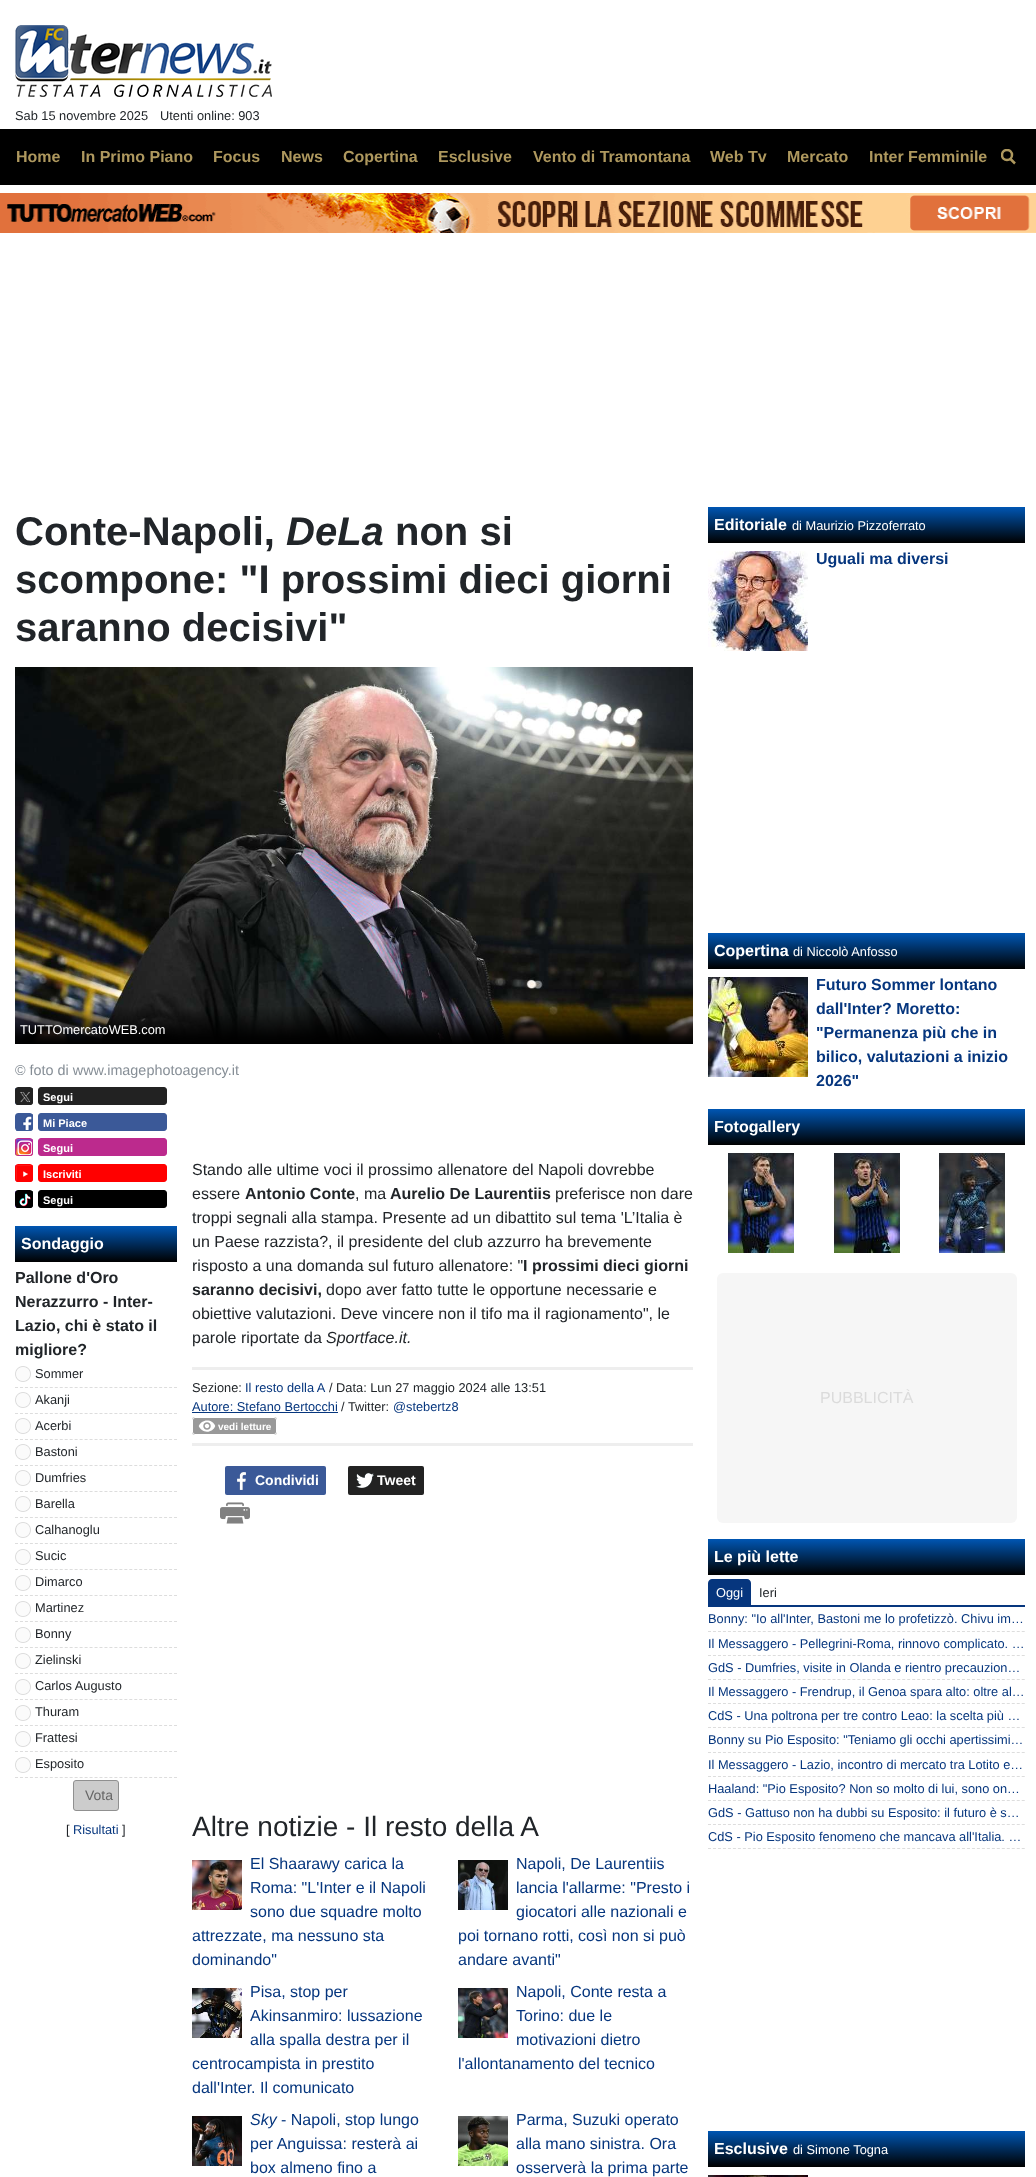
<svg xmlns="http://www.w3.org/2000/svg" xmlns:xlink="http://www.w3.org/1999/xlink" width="1036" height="2177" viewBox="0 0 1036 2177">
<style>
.cls-1{font:12.8px Liberation Sans;fill:#212529}
.cls-2{font:bold 16px Liberation Sans;fill:#ae985e}
.cls-3{font:bold 40px Liberation Sans;fill:#212529}
.cls-4{font:italic bold 40px Liberation Sans;fill:#212529}
.cls-5{font:12.8px Liberation Sans;fill:#ffffff}
.cls-6{font:14.4px Liberation Sans;fill:#868e96}
.cls-7{font:bold 11px Liberation Sans;fill:#ffffff}
.cls-8{font:bold 16px Liberation Sans;fill:#ffffff}
.cls-9{font:bold 16px Liberation Sans;fill:#212529}
.cls-10{font:14px Liberation Sans;fill:#666666}
.cls-11{font:12.8px Liberation Sans;fill:#06367e}
.cls-12{font:16px Liberation Sans;fill:#212529}
.cls-13{font:italic 16px Liberation Sans;fill:#212529}
.cls-14{font:bold 10px Liberation Sans;fill:#ffffff}
.cls-15{font:bold 14px Liberation Sans;fill:#ffffff}
.cls-16{font:28px Liberation Sans;fill:#212529}
.cls-17{font:16px Liberation Sans;fill:#06367e}
.cls-18{font:italic 16px Liberation Sans;fill:#06367e}
.cls-19{font:bold 16px Liberation Sans;fill:#06367e}
.cls-20{font:16px Liberation Sans;fill:#dbdbdb}
</style>
<defs>
<clipPath id="clip1"><rect x="1001" y="149" width="14" height="16"/></clipPath>
<linearGradient id="g1" gradientUnits="userSpaceOnUse" x1="96" y1="1226" x2="96" y2="1262"><stop offset="0" stop-color="#0056b3"/><stop offset="1" stop-color="#000000"/></linearGradient>
<linearGradient id="g2" gradientUnits="userSpaceOnUse" x1="867" y1="507" x2="867" y2="543"><stop offset="0" stop-color="#0056b3"/><stop offset="1" stop-color="#000000"/></linearGradient>
<linearGradient id="g3" gradientUnits="userSpaceOnUse" x1="867" y1="933" x2="867" y2="969"><stop offset="0" stop-color="#0056b3"/><stop offset="1" stop-color="#000000"/></linearGradient>
<linearGradient id="g4" gradientUnits="userSpaceOnUse" x1="867" y1="1109" x2="867" y2="1145"><stop offset="0" stop-color="#0056b3"/><stop offset="1" stop-color="#000000"/></linearGradient>
<linearGradient id="g5" gradientUnits="userSpaceOnUse" x1="867" y1="1539" x2="867" y2="1575"><stop offset="0" stop-color="#0056b3"/><stop offset="1" stop-color="#000000"/></linearGradient>
<linearGradient id="g6" gradientUnits="userSpaceOnUse" x1="867" y1="2131" x2="867" y2="2167"><stop offset="0" stop-color="#0056b3"/><stop offset="1" stop-color="#000000"/></linearGradient>
</defs>
<rect width="100%" height="100%" fill="#ffffff"/>
<image xlink:href="image0.png" x="15" y="25" width="257" height="72"/>
<rect fill="#000000" x="0" y="129" width="1036" height="56"/>
<path fill="none" stroke="#ae985e" stroke-width="2.5" d="M1015 163.5L1010 158.5"/>
<g clip-path="url(#clip1)">
<circle fill="none" stroke="#ae985e" stroke-width="2.5" cx="1007" cy="155" r="5"/>
</g>
<image xlink:href="image1.png" x="0" y="193" width="1036" height="40"/>
<image xlink:href="image2.png" x="15" y="667" width="678" height="377"/>
<image xlink:href="image3.png" x="15" y="1088" width="18" height="17"/>
<rect fill="none" stroke="#222222" x="15.5" y="1087.5" width="17" height="17" rx="2.5"/>
<rect fill="#222222" stroke="#222222" x="38.5" y="1087.5" width="128" height="17" rx="2.5"/>
<image xlink:href="image4.png" x="16" y="1114" width="17" height="17"/>
<rect fill="none" stroke="#3b5998" x="15.5" y="1113.5" width="17" height="17" rx="2.5"/>
<rect fill="#3b5998" stroke="#3b5998" x="38.5" y="1113.5" width="128" height="17" rx="2.5"/>
<image xlink:href="image5.png" x="15" y="1139" width="18" height="17"/>
<rect fill="none" stroke="#bc2a8d" x="15.5" y="1138.5" width="17" height="17" rx="2.5"/>
<rect fill="#bc2a8d" stroke="#bc2a8d" x="38.5" y="1138.5" width="128" height="17" rx="2.5"/>
<image xlink:href="image6.png" x="15" y="1165" width="18" height="17"/>
<rect fill="none" stroke="#ff0000" x="15.5" y="1164.5" width="17" height="17" rx="2.5"/>
<rect fill="#ff0000" stroke="#ff0000" x="38.5" y="1164.5" width="128" height="17" rx="2.5"/>
<image xlink:href="image7.png" x="15" y="1191" width="18" height="17"/>
<rect fill="none" stroke="#000000" x="15.5" y="1190.5" width="17" height="17" rx="2.5"/>
<rect fill="#000000" stroke="#000000" x="38.5" y="1190.5" width="128" height="17" rx="2.5"/>
<rect fill="url(#g1)" x="15" y="1226" width="162" height="36"/>
<path fill="none" stroke="#dddddd" stroke-dasharray="3 1.97" d="M15 1387.5H177"/>
<image xlink:href="image8.png" x="15" y="1366" width="16" height="16"/>
<path fill="none" stroke="#dddddd" stroke-dasharray="3 1.97" d="M15 1413.5H177"/>
<image xlink:href="image8.png" x="15" y="1392" width="16" height="16"/>
<path fill="none" stroke="#dddddd" stroke-dasharray="3 1.97" d="M15 1439.5H177"/>
<image xlink:href="image8.png" x="15" y="1418" width="16" height="16"/>
<path fill="none" stroke="#dddddd" stroke-dasharray="3 1.97" d="M15 1465.5H177"/>
<image xlink:href="image8.png" x="15" y="1444" width="16" height="16"/>
<path fill="none" stroke="#dddddd" stroke-dasharray="3 1.97" d="M15 1491.5H177"/>
<image xlink:href="image8.png" x="15" y="1470" width="16" height="16"/>
<path fill="none" stroke="#dddddd" stroke-dasharray="3 1.97" d="M15 1517.5H177"/>
<image xlink:href="image8.png" x="15" y="1496" width="16" height="16"/>
<path fill="none" stroke="#dddddd" stroke-dasharray="3 1.97" d="M15 1543.5H177"/>
<image xlink:href="image8.png" x="15" y="1522" width="16" height="16"/>
<path fill="none" stroke="#dddddd" stroke-dasharray="3 1.97" d="M15 1569.5H177"/>
<image xlink:href="image8.png" x="15" y="1549" width="16" height="16"/>
<path fill="none" stroke="#dddddd" stroke-dasharray="3 1.97" d="M15 1595.5H177"/>
<image xlink:href="image8.png" x="15" y="1575" width="16" height="16"/>
<path fill="none" stroke="#dddddd" stroke-dasharray="3 1.97" d="M15 1621.5H177"/>
<image xlink:href="image8.png" x="15" y="1601" width="16" height="16"/>
<path fill="none" stroke="#dddddd" stroke-dasharray="3 1.97" d="M15 1647.5H177"/>
<image xlink:href="image8.png" x="15" y="1627" width="16" height="16"/>
<path fill="none" stroke="#dddddd" stroke-dasharray="3 1.97" d="M15 1673.5H177"/>
<image xlink:href="image8.png" x="15" y="1653" width="16" height="16"/>
<path fill="none" stroke="#dddddd" stroke-dasharray="3 1.97" d="M15 1699.5H177"/>
<image xlink:href="image8.png" x="15" y="1679" width="16" height="16"/>
<path fill="none" stroke="#dddddd" stroke-dasharray="3 1.97" d="M15 1725.5H177"/>
<image xlink:href="image8.png" x="15" y="1705" width="16" height="16"/>
<path fill="none" stroke="#dddddd" stroke-dasharray="3 1.97" d="M15 1751.5H177"/>
<image xlink:href="image8.png" x="15" y="1731" width="16" height="16"/>
<path fill="none" stroke="#dddddd" stroke-dasharray="3 1.97" d="M15 1777.5H177"/>
<image xlink:href="image8.png" x="15" y="1757" width="16" height="16"/>
<rect fill="#cccccc" stroke="#909090" x="73.5" y="1780.5" width="45" height="30" rx="2.5"/>
<rect fill="#eeeeee" x="192" y="1367" width="501" height="3"/>
<rect fill="#eeeeee" x="192" y="1443" width="501" height="3"/>
<rect fill="#06367e" x="192" y="1412" width="146" height="1"/>
<rect fill="#999999" x="192" y="1417" width="85" height="18" rx="3"/>
<image xlink:href="image9.png" x="198" y="1420" width="18" height="12"/>
<rect fill="none" stroke="#ffffff" x="192.5" y="1417.5" width="84" height="17" rx="2.5"/>
<rect fill="#3b5998" x="225" y="1466" width="101" height="29" rx="2"/>
<image xlink:href="image10.png" x="237" y="1472" width="9" height="18"/>
<rect fill="#222222" x="348" y="1466" width="76" height="29" rx="2"/>
<image xlink:href="image11.png" x="356" y="1473" width="18" height="15"/>
<image xlink:href="image12.png" x="220" y="1502" width="30" height="22"/>
<image xlink:href="image13.png" x="192" y="1860" width="50" height="50"/>
<image xlink:href="image14.png" x="458" y="1860" width="50" height="50"/>
<image xlink:href="image15.png" x="192" y="1988" width="50" height="50"/>
<image xlink:href="image16.png" x="458" y="1988" width="50" height="50"/>
<image xlink:href="image17.png" x="192" y="2116" width="50" height="50"/>
<image xlink:href="image18.png" x="458" y="2116" width="50" height="50"/>
<rect fill="url(#g2)" x="708" y="507" width="317" height="36"/>
<image xlink:href="image19.png" x="708" y="551" width="100" height="100"/>
<rect fill="url(#g3)" x="708" y="933" width="317" height="36"/>
<image xlink:href="image20.png" x="708" y="977" width="100" height="100"/>
<rect fill="url(#g4)" x="708" y="1109" width="317" height="36"/>
<image xlink:href="image21.png" x="728" y="1153" width="66" height="100"/>
<image xlink:href="image22.png" x="834" y="1153" width="66" height="100"/>
<image xlink:href="image23.png" x="939" y="1153" width="66" height="100"/>
<rect fill="#f6f6f6" x="717" y="1273" width="300" height="250" rx="6"/>
<rect fill="url(#g5)" x="708" y="1539" width="317" height="36"/>
<rect fill="#06367e" x="708" y="1605" width="317" height="2"/>
<path fill="#06367e" d="M712 1579H747C749 1579 751 1581 751 1583V1606H708V1583C708 1581 710 1579 712 1579Z"/>
<path fill="none" stroke="#dddddd" stroke-dasharray="3 1.98" d="M708 1631.5H1025"/>
<path fill="none" stroke="#dddddd" stroke-dasharray="3 1.98" d="M708 1655.5H1025"/>
<path fill="none" stroke="#dddddd" stroke-dasharray="3 1.98" d="M708 1679.5H1025"/>
<path fill="none" stroke="#dddddd" stroke-dasharray="3 1.98" d="M708 1703.5H1025"/>
<path fill="none" stroke="#dddddd" stroke-dasharray="3 1.98" d="M708 1727.5H1025"/>
<path fill="none" stroke="#dddddd" stroke-dasharray="3 1.98" d="M708 1752.5H1025"/>
<path fill="none" stroke="#dddddd" stroke-dasharray="3 1.98" d="M708 1776.5H1025"/>
<path fill="none" stroke="#dddddd" stroke-dasharray="3 1.98" d="M708 1800.5H1025"/>
<path fill="none" stroke="#dddddd" stroke-dasharray="3 1.98" d="M708 1824.5H1025"/>
<path fill="none" stroke="#dddddd" stroke-dasharray="3 1.98" d="M708 1848.5H1025"/>
<rect fill="url(#g6)" x="708" y="2131" width="317" height="36"/>
<image xlink:href="image24.png" x="708" y="2175" width="100" height="2"/>
<text class="cls-1" x="15" y="120">Sab 15 novembre 2025</text>
<text class="cls-1" x="160" y="120">Utenti online: 903</text>
<text class="cls-2" x="16" y="162">Home</text>
<text class="cls-2" x="81" y="162">In Primo Piano</text>
<text class="cls-2" x="213" y="162">Focus</text>
<text class="cls-2" x="281" y="162">News</text>
<text class="cls-2" x="343" y="162">Copertina</text>
<text class="cls-2" x="438" y="162">Esclusive</text>
<text class="cls-2" x="533" y="162">Vento di Tramontana</text>
<text class="cls-2" x="710" y="162">Web Tv</text>
<text class="cls-2" x="787" y="162">Mercato</text>
<text class="cls-2" x="869" y="162">Inter Femminile</text>
<text class="cls-3" x="15" y="545">Conte-Napoli,</text>
<text class="cls-4" x="286" y="545">DeLa</text>
<text class="cls-3" x="395" y="545">non si</text>
<text class="cls-3"><tspan x="15" y="593">scompone: "I prossimi dieci giorni</tspan><tspan x="15" y="641">saranno decisivi"</tspan></text>
<text class="cls-5" x="20" y="1034">TUTTOmercatoWEB.com</text>
<text class="cls-6" x="15" y="1075">© foto di www.imagephotoagency.it</text>
<text class="cls-7" x="43" y="1101">Segui</text>
<text class="cls-7" x="43" y="1127">Mi Piace</text>
<text class="cls-7" x="43" y="1152">Segui</text>
<text class="cls-7" x="43" y="1178">Iscriviti</text>
<text class="cls-7" x="43" y="1204">Segui</text>
<text class="cls-8" x="21" y="1249">Sondaggio</text>
<text class="cls-9"><tspan x="15" y="1283">Pallone d'Oro</tspan><tspan x="15" y="1307">Nerazzurro - Inter-</tspan><tspan x="15" y="1331">Lazio, chi è stato il</tspan><tspan x="15" y="1355">migliore?</tspan></text>
<text class="cls-1" x="35" y="1378">Sommer</text>
<text class="cls-1" x="35" y="1404">Akanji</text>
<text class="cls-1" x="35" y="1430">Acerbi</text>
<text class="cls-1" x="35" y="1456">Bastoni</text>
<text class="cls-1" x="35" y="1482">Dumfries</text>
<text class="cls-1" x="35" y="1508">Barella</text>
<text class="cls-1" x="35" y="1534">Calhanoglu</text>
<text class="cls-1" x="35" y="1560">Sucic</text>
<text class="cls-1" x="35" y="1586">Dimarco</text>
<text class="cls-1" x="35" y="1612">Martinez</text>
<text class="cls-1" x="35" y="1638">Bonny</text>
<text class="cls-1" x="35" y="1664">Zielinski</text>
<text class="cls-1" x="35" y="1690">Carlos Augusto</text>
<text class="cls-1" x="35" y="1716">Thuram</text>
<text class="cls-1" x="35" y="1742">Frattesi</text>
<text class="cls-1" x="35" y="1768">Esposito</text>
<text class="cls-10" x="85" y="1800">Vota</text>
<text class="cls-1" x="66" y="1834">[</text>
<text class="cls-11" x="73" y="1834">Risultati</text>
<text class="cls-1" x="122" y="1834">]</text>
<text class="cls-12"><tspan x="192" y="1175">Stando alle ultime voci il prossimo allenatore del Napoli dovrebbe</tspan><tspan x="192" y="1199">essere</tspan></text>
<text class="cls-9" x="245" y="1199">Antonio Conte</text>
<text class="cls-12" x="355" y="1199">, ma</text>
<text class="cls-9" x="390" y="1199">Aurelio De Laurentiis</text>
<text class="cls-12" x="555" y="1199">preferisce non dare</text>
<text class="cls-12"><tspan x="192" y="1223">troppi segnali alla stampa. Presente ad un dibattito sul tema 'L’Italia è</tspan><tspan x="192" y="1247">un Paese razzista?, il presidente del club azzurro ha brevemente</tspan><tspan x="192" y="1271">risposto a una domanda sul futuro allenatore: "</tspan></text>
<text class="cls-9" x="523" y="1271">I prossimi dieci giorni</text>
<text class="cls-9" x="192" y="1295">saranno decisivi,</text>
<text class="cls-12" x="326" y="1295">dopo aver fatto tutte le opportune necessarie e</text>
<text class="cls-12"><tspan x="192" y="1319">obiettive valutazioni. Deve vincere non il tifo ma il ragionamento", le</tspan><tspan x="192" y="1343">parole riportate da</tspan></text>
<text class="cls-13" x="326" y="1343">Sportface.it.</text>
<text class="cls-1" x="192" y="1392">Sezione:</text>
<text class="cls-11" x="245" y="1392">Il resto della A</text>
<text class="cls-1" x="329" y="1392">/ Data: Lun 27 maggio 2024 alle 13:51</text>
<text class="cls-11" x="192" y="1411">Autore: Stefano Bertocchi</text>
<text class="cls-1" x="341" y="1411">/ Twitter:</text>
<text class="cls-11" x="393" y="1411">@stebertz8</text>
<text class="cls-14" x="218" y="1430">vedi letture</text>
<text class="cls-15" x="255" y="1485">Condividi</text>
<text class="cls-15" x="377" y="1485">Tweet</text>
<text class="cls-16" x="192" y="1836">Altre notizie - Il resto della A</text>
<text class="cls-17"><tspan x="250" y="1869">El Shaarawy carica la</tspan><tspan x="250" y="1893">Roma: "L'Inter e il Napoli</tspan><tspan x="250" y="1917">sono due squadre molto</tspan></text>
<text class="cls-17"><tspan x="192" y="1941">attrezzate, ma nessuno sta</tspan><tspan x="192" y="1965">dominando"</tspan></text>
<text class="cls-17"><tspan x="516" y="1869">Napoli, De Laurentiis</tspan><tspan x="516" y="1893">lancia l'allarme: "Presto i</tspan><tspan x="516" y="1917">giocatori alle nazionali e</tspan></text>
<text class="cls-17"><tspan x="458" y="1941">poi tornano rotti, così non si può</tspan><tspan x="458" y="1965">andare avanti"</tspan></text>
<text class="cls-17"><tspan x="250" y="1997">Pisa, stop per</tspan><tspan x="250" y="2021">Akinsanmiro: lussazione</tspan><tspan x="250" y="2045">alla spalla destra per il</tspan></text>
<text class="cls-17"><tspan x="192" y="2069">centrocampista in prestito</tspan><tspan x="192" y="2093">dall'Inter. Il comunicato</tspan></text>
<text class="cls-17"><tspan x="516" y="1997">Napoli, Conte resta a</tspan><tspan x="516" y="2021">Torino: due le</tspan><tspan x="516" y="2045">motivazioni dietro</tspan></text>
<text class="cls-17" x="458" y="2069">l'allontanamento del tecnico</text>
<text class="cls-18" x="250" y="2125">Sky</text>
<text class="cls-17" x="281" y="2125">- Napoli, stop lungo</text>
<text class="cls-17"><tspan x="250" y="2149">per Anguissa: resterà ai</tspan><tspan x="250" y="2173">box almeno fino a</tspan></text>
<text class="cls-17"><tspan x="516" y="2125">Parma, Suzuki operato</tspan><tspan x="516" y="2149">alla mano sinistra. Ora</tspan><tspan x="516" y="2173">osserverà la prima parte</tspan></text>
<text class="cls-8" x="714" y="530">Editoriale</text>
<text class="cls-5" x="792" y="530">di Maurizio Pizzoferrato</text>
<text class="cls-19" x="816" y="564">Uguali ma diversi</text>
<text class="cls-8" x="714" y="956">Copertina</text>
<text class="cls-5" x="793" y="956">di Niccolò Anfosso</text>
<text class="cls-19"><tspan x="816" y="990">Futuro Sommer lontano</tspan><tspan x="816" y="1014">dall'Inter? Moretto:</tspan><tspan x="816" y="1038">"Permanenza più che in</tspan><tspan x="816" y="1062">bilico, valutazioni a inizio</tspan><tspan x="816" y="1086">2026"</tspan></text>
<text class="cls-8" x="714" y="1132">Fotogallery</text>
<text class="cls-20" x="820" y="1403">PUBBLICITÀ</text>
<text class="cls-8" x="714" y="1562">Le più lette</text>
<text class="cls-5" x="716" y="1597">Oggi</text>
<text class="cls-1" x="759" y="1597">Ieri</text>
<text class="cls-11"><tspan x="708" y="1623">Bonny: "Io all'Inter, Bastoni me lo profetizzò. Chivu im…</tspan><tspan x="708" y="1648">Il Messaggero - Pellegrini-Roma, rinnovo complicato. …</tspan><tspan x="708" y="1672">GdS - Dumfries, visite in Olanda e rientro precauzion…</tspan><tspan x="708" y="1696">Il Messaggero - Frendrup, il Genoa spara alto: oltre al…</tspan><tspan x="708" y="1720">CdS - Una poltrona per tre contro Leao: la scelta più …</tspan><tspan x="708" y="1744">Bonny su Pio Esposito: "Teniamo gli occhi apertissimi…</tspan><tspan x="708" y="1769">Il Messaggero - Lazio, incontro di mercato tra Lotito e…</tspan><tspan x="708" y="1793">Haaland: "Pio Esposito? Non so molto di lui, sono on…</tspan><tspan x="708" y="1817">GdS - Gattuso non ha dubbi su Esposito: il futuro è s…</tspan><tspan x="708" y="1841">CdS - Pio Esposito fenomeno che mancava all'Italia. …</tspan></text>
<text class="cls-8" x="714" y="2154">Esclusive</text>
<text class="cls-5" x="793" y="2154">di Simone Togna</text>
</svg>
